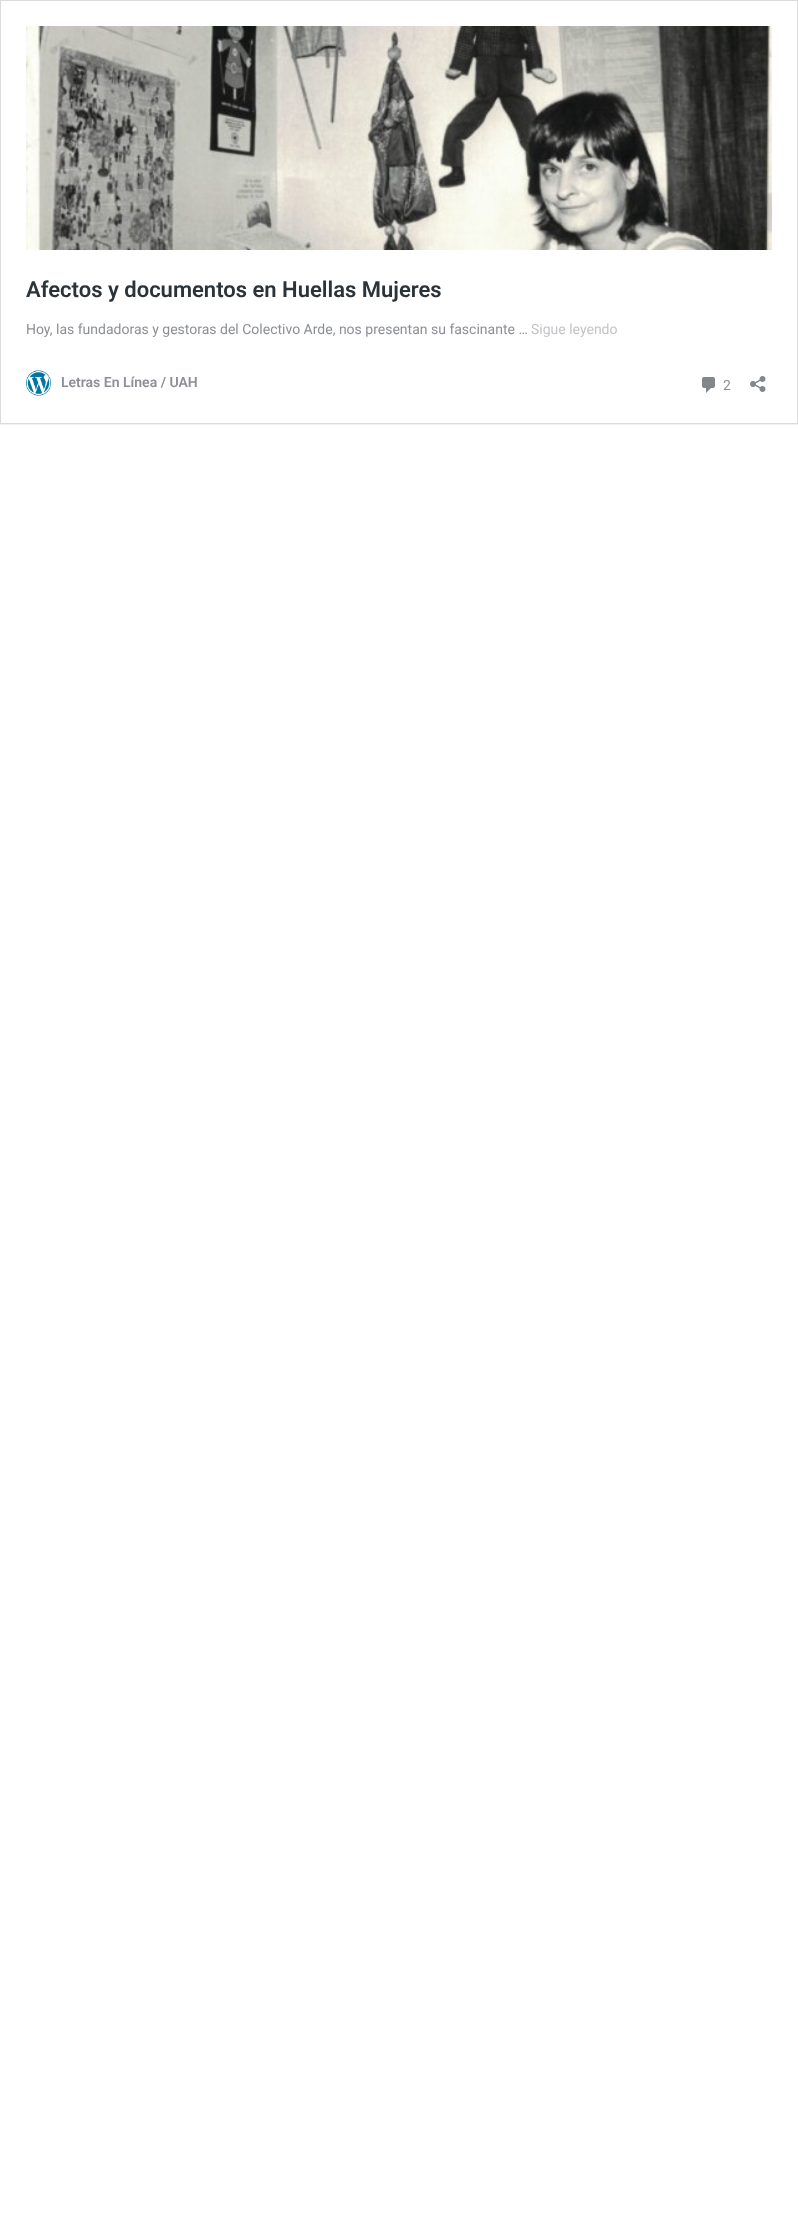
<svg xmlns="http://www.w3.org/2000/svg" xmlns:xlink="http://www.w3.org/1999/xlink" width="798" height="2219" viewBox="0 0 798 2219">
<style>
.cls-1{font:600 22px Roboto;fill:#2c3338}
.cls-2{font:14px Roboto;fill:#8c8f94}
.cls-3{font:14px Roboto;fill:#c3c4c7}
.cls-4{font:600 14px Roboto;fill:#8c8f94}
</style>
<defs>
<clipPath id="clip1"><rect x="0" y="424" width="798" height="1"/></clipPath>
</defs>
<rect width="100%" height="100%" fill="#ffffff"/>
<g clip-path="url(#clip1)">
<rect fill="#000000" fill-opacity="0.05" filter="blur(0.5px)" x="0" y="1" width="798" height="424"/>
</g>
<rect fill="none" stroke="#dcdcde" x="0.5" y="0.5" width="797" height="423"/>
<image xlink:href="image0.png" x="26" y="26" width="746" height="224"/>
<image xlink:href="image1.png" x="26" y="370" width="25" height="26"/>
<image xlink:href="image2.png" x="702" y="377" width="13" height="16"/>
<image xlink:href="image3.png" x="750" y="376" width="16" height="16"/>
<text class="cls-1" x="26" y="297">Afectos y documentos en Huellas Mujeres</text>
<text class="cls-2" x="26" y="334">Hoy, las fundadoras y gestoras del Colectivo Arde, nos presentan su fascinante …</text>
<text class="cls-3" x="531" y="334">Sigue leyendo</text>
<text class="cls-4" x="61" y="387">Letras En Línea / UAH</text>
<text class="cls-2" x="723" y="390">2</text>
</svg>
